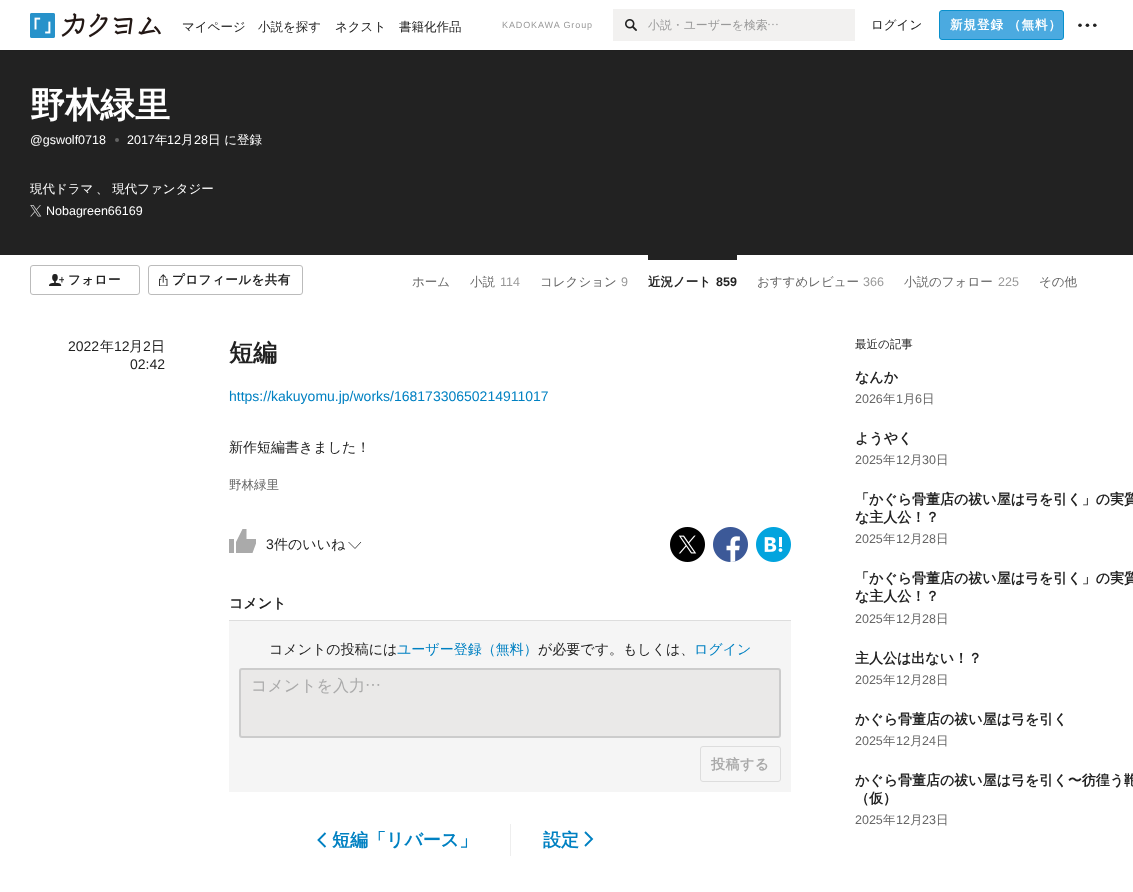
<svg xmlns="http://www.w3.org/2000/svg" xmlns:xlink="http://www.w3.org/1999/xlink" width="1133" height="892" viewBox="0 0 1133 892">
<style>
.cls-1{font:500 12.5px WenQuanYi Zen Hei;fill:#222222}
.cls-2{font:9px Liberation Sans;letter-spacing:0.9px;fill:#999999}
.cls-3{font:500 11.9px WenQuanYi Zen Hei;fill:#999999}
.cls-4{font:bold 12.5px WenQuanYi Zen Hei;letter-spacing:1px;fill:#ffffff}
.cls-5{font:bold 35px WenQuanYi Zen Hei;fill:#ffffff}
.cls-6{font:12.5px Liberation Sans;fill:#ffffff}
.cls-7{font:500 12.5px WenQuanYi Zen Hei;fill:#ffffff}
.cls-8{font:bold 12.5px WenQuanYi Zen Hei;letter-spacing:0.5px;fill:#222222}
.cls-9{font:500 12.5px WenQuanYi Zen Hei;fill:#666666}
.cls-10{font:12.5px Liberation Sans;fill:#999999}
.cls-11{font:bold 12.5px WenQuanYi Zen Hei;fill:#222222}
.cls-12{font:bold 12.5px Liberation Sans;fill:#222222}
.cls-13{font:14px Liberation Sans;fill:#222222}
.cls-14{font:500 14px WenQuanYi Zen Hei;fill:#222222}
.cls-15{font:bold 24px WenQuanYi Zen Hei;fill:#222222}
.cls-16{font:14px Liberation Sans;fill:#0081c2}
.cls-17{font:bold 14px WenQuanYi Zen Hei;fill:#222222}
.cls-18{font:500 14px WenQuanYi Zen Hei;fill:#0081c2}
.cls-19{font:500 16px WenQuanYi Zen Hei;fill:#aaaaaa}
.cls-20{font:bold 14px WenQuanYi Zen Hei;letter-spacing:0.5px;fill:#aaaaaa}
.cls-21{font:bold 18px WenQuanYi Zen Hei;fill:#0081c2}
.cls-22{font:500 11.5px WenQuanYi Zen Hei;fill:#222222}
.cls-23{font:12.5px Liberation Sans;fill:#666666}
</style>
<defs>
<clipPath id="clip1"><rect x="229" y="529" width="27" height="24"/></clipPath>
</defs>
<rect width="100%" height="100%" fill="#ffffff"/>
<rect fill="#202020" x="0" y="50" width="1133" height="1"/>
<image xlink:href="image0.png" x="30" y="13" width="131" height="25"/>
<rect fill="#f2f1f0" x="613" y="9" width="242" height="32"/>
<image xlink:href="image1.png" x="625" y="19" width="12" height="12"/>
<image xlink:href="image2.png" x="768" y="23" width="10" height="3"/>
<rect fill="#4baae0" stroke="#0990cc" x="939.5" y="10.5" width="124" height="29" rx="2.5"/>
<circle fill="#222222" cx="1080" cy="25.2" r="1.8"/>
<circle fill="#222222" cx="1087.4" cy="25.2" r="1.8"/>
<circle fill="#222222" cx="1094.8" cy="25.2" r="1.8"/>
<rect fill="#222222" x="0" y="51" width="1133" height="204"/>
<circle fill="#646464" cx="117" cy="140" r="2"/>
<image xlink:href="image3.png" x="30" y="205" width="12" height="12"/>
<rect fill="none" stroke="#bbbbbb" x="30.5" y="265.5" width="109" height="29" rx="2.5"/>
<image xlink:href="image4.png" x="49" y="274" width="15" height="12"/>
<rect fill="none" stroke="#bbbbbb" x="148.5" y="265.5" width="154" height="29" rx="2.5"/>
<image xlink:href="image5.png" x="159" y="274" width="9" height="12"/>
<rect fill="#222222" x="648" y="255" width="89" height="5"/>
<rect fill="#aaaaaa" x="229" y="539" width="5" height="14"/>
<g clip-path="url(#clip1)">
<path fill="#aaaaaa" d="M256.5 542V539H246.5V529H242.5L236 542V553H252.5Z"/>
</g>
<path fill="none" stroke="#222222" stroke-width="0.8" d="M348.5 542L355 548.5L361 542"/>
<image xlink:href="image6.png" x="670" y="527" width="35" height="35"/>
<image xlink:href="image7.png" x="713" y="527" width="35" height="35"/>
<image xlink:href="image8.png" x="756" y="527" width="35" height="35"/>
<rect fill="#dddddd" x="229" y="620" width="562" height="1"/>
<rect fill="#f5f5f5" x="229" y="621" width="562" height="171"/>
<rect fill="#eae9e8" stroke="#cccccc" stroke-width="2" x="240" y="669" width="540" height="68" rx="2"/>
<image xlink:href="image9.png" x="366" y="684" width="14" height="2"/>
<rect fill="none" stroke="#dddddd" x="700.5" y="746.5" width="80" height="35" rx="2.5"/>
<path fill="none" stroke="#0081c2" stroke-width="1.9" d="M325.5 847L318.5 840L325.5 833"/>
<rect fill="#eeeeee" x="510" y="824" width="1" height="32"/>
<path fill="none" stroke="#0081c2" stroke-width="1.9" d="M585 832L592 839L585 846"/>
<text class="cls-1" x="182" y="31">マイページ</text>
<text class="cls-1" x="258" y="31">小説を探す</text>
<text class="cls-1" x="335" y="31">ネクスト</text>
<text class="cls-1" x="399" y="31">書籍化作品</text>
<text class="cls-2" x="502" y="28">KADOKAWA Group</text>
<text class="cls-3" x="648" y="29">小説・ユーザーを検索</text>
<text class="cls-1" x="871" y="29">ログイン</text>
<text class="cls-4" x="950" y="29">新規登録</text>
<text class="cls-4" x="1008" y="29">（無料）</text>
<text class="cls-5" x="30" y="117">野林緑里</text>
<text class="cls-6" x="30" y="144">@gswolf0718</text>
<text class="cls-6" x="127" y="144">2017</text>
<text class="cls-7" x="155" y="144">年</text>
<text class="cls-6" x="167" y="144">12</text>
<text class="cls-7" x="181" y="144">月</text>
<text class="cls-6" x="194" y="144">28</text>
<text class="cls-7" x="208" y="144">日 に登録</text>
<text class="cls-7" x="30" y="193">現代ドラマ</text>
<text class="cls-7" x="96" y="193">、 現代ファンタジー</text>
<text class="cls-6" x="46" y="215">Nobagreen66169</text>
<text class="cls-8" x="68" y="284">フォロー</text>
<text class="cls-8" x="172" y="284">プロフィールを共有</text>
<text class="cls-9" x="412" y="286">ホーム</text>
<text class="cls-9" x="470" y="286">小説</text>
<text class="cls-10" x="500" y="286">114</text>
<text class="cls-9" x="540" y="286">コレクション</text>
<text class="cls-10" x="621" y="286">9</text>
<text class="cls-11" x="648" y="286">近況ノート</text>
<text class="cls-12" x="716" y="286">859</text>
<text class="cls-9" x="757" y="286">おすすめレビュー</text>
<text class="cls-10" x="863" y="286">366</text>
<text class="cls-9" x="904" y="286">小説のフォロー</text>
<text class="cls-10" x="998" y="286">225</text>
<text class="cls-9" x="1039" y="286">その他</text>
<text class="cls-13" x="68" y="351">2022</text>
<text class="cls-14" x="100" y="351">年</text>
<text class="cls-13" x="114" y="351">12</text>
<text class="cls-14" x="129" y="351">月</text>
<text class="cls-13" x="143" y="351">2</text>
<text class="cls-14" x="151" y="351">日</text>
<text class="cls-13" x="130" y="369">02:42</text>
<text class="cls-15" x="229" y="361">短編</text>
<text class="cls-16" x="229" y="401">https://kakuyomu.jp/works/16817330650214911017</text>
<text class="cls-14" x="229" y="452">新作短編書きました！</text>
<text class="cls-9" x="229" y="489">野林緑里</text>
<text class="cls-13" x="266" y="549">3</text>
<text class="cls-14" x="274" y="549">件のいいね</text>
<text class="cls-17" x="229" y="608">コメント</text>
<text class="cls-14" x="269" y="654">コメントの投稿には</text>
<text class="cls-18" x="397" y="654">ユーザー登録（無料）</text>
<text class="cls-14" x="538" y="654">が必要です。もしくは、</text>
<text class="cls-18" x="694" y="654">ログイン</text>
<text class="cls-19" x="251" y="691">コメントを入力</text>
<text class="cls-20" x="711" y="769">投稿する</text>
<text class="cls-21" x="332" y="846">短編「リバース」</text>
<text class="cls-21" x="543" y="846">設定</text>
<text class="cls-22" x="855" y="348">最近の記事</text>
<text class="cls-17" x="855" y="382">なんか</text>
<text class="cls-23" x="855" y="403">2026</text>
<text class="cls-9" x="883" y="403">年</text>
<text class="cls-23" x="896" y="403">1</text>
<text class="cls-9" x="903" y="403">月</text>
<text class="cls-23" x="915" y="403">6</text>
<text class="cls-9" x="922" y="403">日</text>
<text class="cls-17" x="855" y="443">ようやく</text>
<text class="cls-23" x="855" y="464">2025</text>
<text class="cls-9" x="883" y="464">年</text>
<text class="cls-23" x="896" y="464">12</text>
<text class="cls-9" x="910" y="464">月</text>
<text class="cls-23" x="922" y="464">30</text>
<text class="cls-9" x="936" y="464">日</text>
<text class="cls-17"><tspan x="855" y="504">「かぐら骨董店の祓い屋は弓を引く」の実質</tspan><tspan x="855" y="522">な主人公！？</tspan></text>
<text class="cls-23" x="855" y="543">2025</text>
<text class="cls-9" x="883" y="543">年</text>
<text class="cls-23" x="896" y="543">12</text>
<text class="cls-9" x="910" y="543">月</text>
<text class="cls-23" x="922" y="543">28</text>
<text class="cls-9" x="936" y="543">日</text>
<text class="cls-17"><tspan x="855" y="583">「かぐら骨董店の祓い屋は弓を引く」の実質</tspan><tspan x="855" y="601">な主人公！？</tspan></text>
<text class="cls-23" x="855" y="623">2025</text>
<text class="cls-9" x="883" y="623">年</text>
<text class="cls-23" x="896" y="623">12</text>
<text class="cls-9" x="910" y="623">月</text>
<text class="cls-23" x="922" y="623">28</text>
<text class="cls-9" x="936" y="623">日</text>
<text class="cls-17" x="855" y="663">主人公は出ない！？</text>
<text class="cls-23" x="855" y="684">2025</text>
<text class="cls-9" x="883" y="684">年</text>
<text class="cls-23" x="896" y="684">12</text>
<text class="cls-9" x="910" y="684">月</text>
<text class="cls-23" x="922" y="684">28</text>
<text class="cls-9" x="936" y="684">日</text>
<text class="cls-17" x="855" y="724">かぐら骨董店の祓い屋は弓を引く</text>
<text class="cls-23" x="855" y="745">2025</text>
<text class="cls-9" x="883" y="745">年</text>
<text class="cls-23" x="896" y="745">12</text>
<text class="cls-9" x="910" y="745">月</text>
<text class="cls-23" x="922" y="745">24</text>
<text class="cls-9" x="936" y="745">日</text>
<text class="cls-17"><tspan x="855" y="785">かぐら骨董店の祓い屋は弓を引く〜彷徨う鞄</tspan><tspan x="855" y="803">（仮）</tspan></text>
<text class="cls-23" x="855" y="824">2025</text>
<text class="cls-9" x="883" y="824">年</text>
<text class="cls-23" x="896" y="824">12</text>
<text class="cls-9" x="910" y="824">月</text>
<text class="cls-23" x="922" y="824">23</text>
<text class="cls-9" x="936" y="824">日</text>
</svg>
